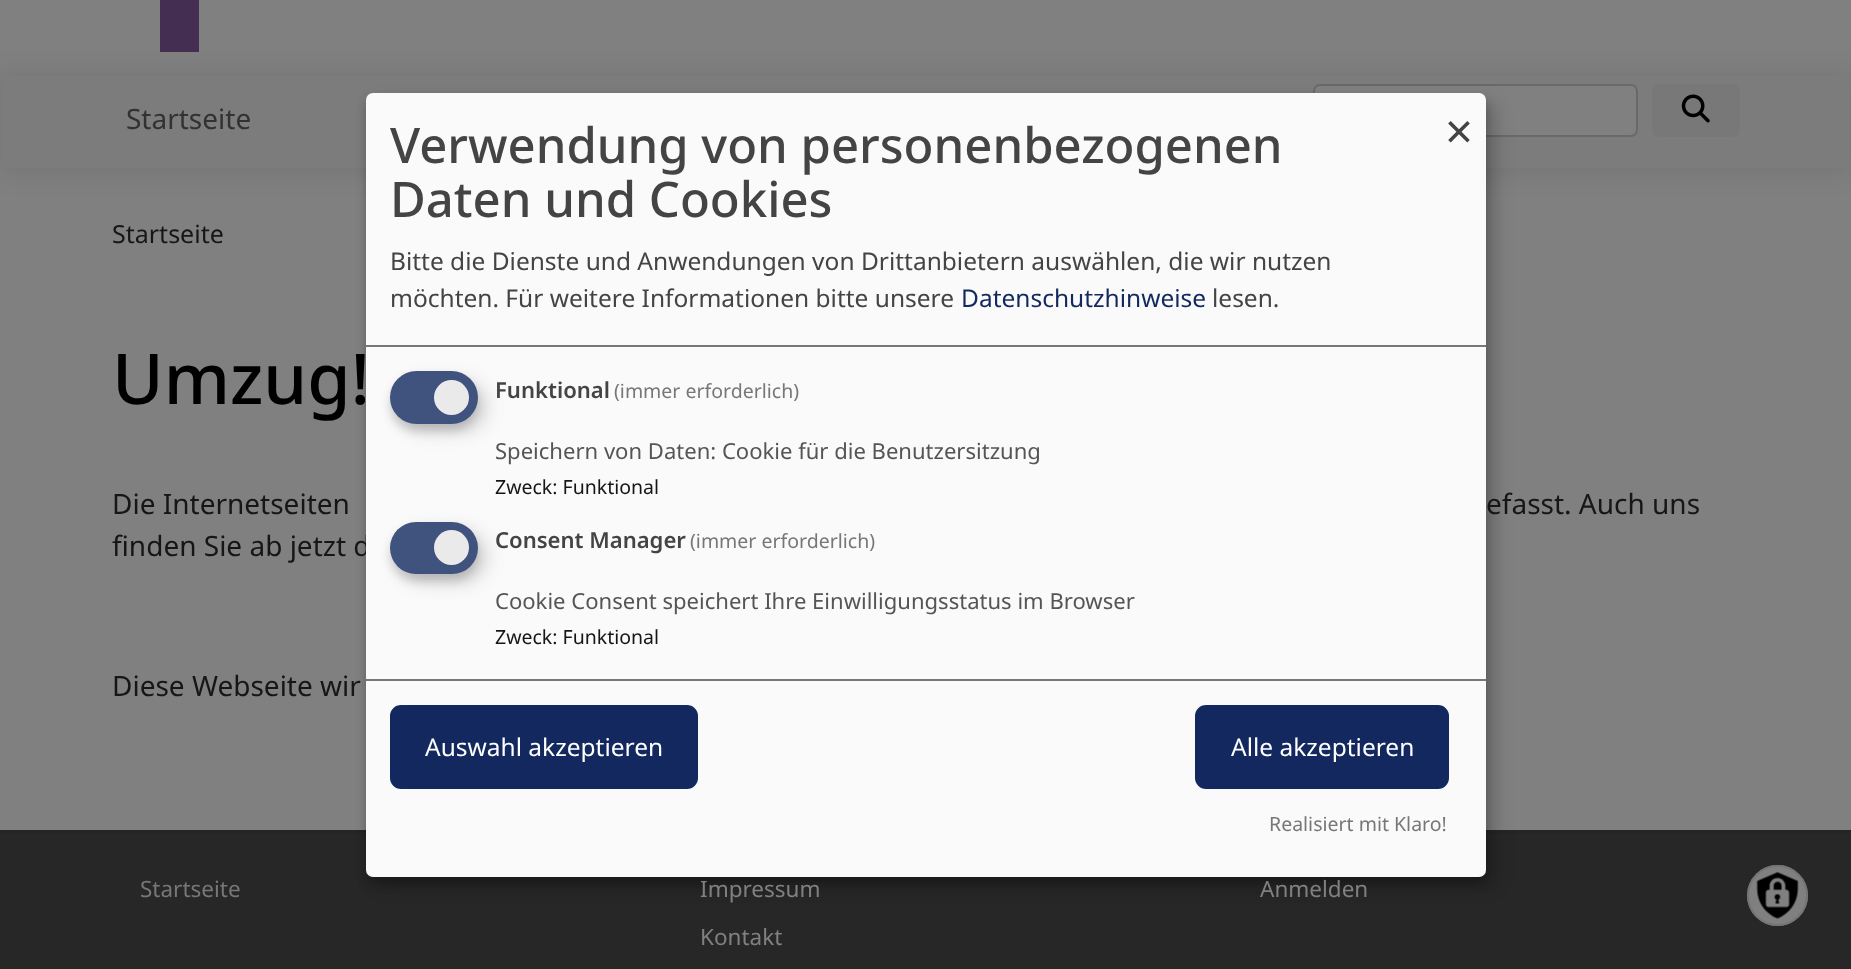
<svg xmlns="http://www.w3.org/2000/svg" xmlns:xlink="http://www.w3.org/1999/xlink" width="1851" height="969" viewBox="0 0 1851 969">
<style>
.cls-1{font:28px Noto Sans;fill:#323232}
.cls-2{font:25px Noto Sans;fill:#151616}
.cls-3{font:500 70px Noto Sans;fill:#000000}
.cls-4{font:28px Noto Sans;fill:#151616}
.cls-5{font:22.5px Noto Sans;fill:#767778}
.cls-6{font:22.5px Noto Sans;fill:#808080}
.cls-7{font:500 49px Noto Sans;fill:#444444}
.cls-8{font:24.5px Noto Sans;fill:#444444}
.cls-9{font:24.5px Noto Sans;fill:#12285f}
.cls-10{font:49px Noto Sans;fill:#444444}
.cls-11{font:600 22.05px Noto Sans;fill:#444444}
.cls-12{font:19.5px Noto Sans;fill:#767778}
.cls-13{font:22.05px Noto Sans;fill:#555555}
.cls-14{font:19.5px Noto Sans;fill:#151616}
.cls-15{font:24.5px Noto Sans;fill:#ffffff}
</style>
<rect width="100%" height="100%" fill="#808080"/>
<rect fill="#442f52" x="160" y="0" width="39" height="52"/>
<rect fill="#000000" fill-opacity="0.09" filter="blur(13px)" x="0" y="74" width="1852" height="98"/>
<rect fill="#7c7c7c" x="2" y="76" width="1848" height="92"/>
<rect fill="#808080" x="1314" y="86" width="322" height="49" rx="5"/>
<rect fill="none" stroke="#000000" stroke-opacity="0.15" stroke-width="2" x="1314" y="85" width="323" height="51" rx="6"/>
<rect fill="#787878" x="1652" y="84" width="88" height="53" rx="7"/>
<image xlink:href="image0.png" x="1681" y="94" width="29" height="29"/>
<rect fill="#272727" x="0" y="834" width="1851" height="135"/>
<rect fill="#232526" x="0" y="830" width="1851" height="4"/>
<rect fill="#000000" fill-opacity="0.19" filter="blur(9px)" x="375" y="102" width="1120" height="784" rx="7"/>
<rect fill="#000000" fill-opacity="0.2" filter="blur(5px)" x="366" y="100" width="1120" height="784" rx="7"/>
<circle fill="#808080" cx="1777.5" cy="895.5" r="30.5"/>
<image xlink:href="image1.png" x="1756" y="871" width="43" height="48"/>
<circle fill="none" stroke="#757575" stroke-width="2" cx="1777.5" cy="895.5" r="29.5"/>
<text class="cls-1" x="126" y="129">Startseite</text>
<text class="cls-2" x="112" y="243">Startseite</text>
<text class="cls-3" x="112" y="404">Umzug!</text>
<text class="cls-4" x="112" y="514">Die Internetseiten</text>
<text class="cls-4" x="1486" y="514">efasst. Auch uns</text>
<text class="cls-4" x="112" y="556">finden Sie ab jetzt d</text>
<text class="cls-4" x="112" y="696">Diese Webseite wir</text>
<text class="cls-5" x="140" y="897">Startseite</text>
<text class="cls-6" x="700" y="897">Impressum</text>
<text class="cls-6" x="700" y="945">Kontakt</text>
<text class="cls-6" x="1260" y="897">Anmelden</text>
<rect fill="#fafafa" x="366" y="93" width="1120" height="784" rx="7"/>
<rect fill="#777777" x="366" y="345" width="1120" height="2"/>
<text class="cls-7"><tspan x="390" y="163">Verwendung von personenbezogenen</tspan><tspan x="390" y="217">Daten und Cookies</tspan></text>
<text class="cls-8"><tspan x="390" y="270">Bitte die Dienste und Anwendungen von Drittanbietern auswählen, die wir nutzen</tspan><tspan x="390" y="307">möchten. Für weitere Informationen bitte unsere</tspan></text>
<text class="cls-9" x="961" y="307">Datenschutzhinweise</text>
<text class="cls-8" x="1212" y="307">lesen.</text>
<text class="cls-10" x="1445" y="149">×</text>
<rect fill="#000000" fill-opacity="0.15" filter="blur(9px)" x="399" y="380" width="88" height="52" rx="26"/>
<rect fill="#323232" fill-opacity="0.2" filter="blur(5px)" x="390" y="378" width="88" height="53" rx="26.5"/>
<rect fill="#40527e" x="390" y="371" width="88" height="53" rx="26.5"/>
<circle fill="#eaeaea" cx="451.5" cy="397.5" r="17.5"/>
<text class="cls-11" x="495" y="398">Funktional</text>
<text class="cls-12" x="614" y="398">(immer erforderlich)</text>
<text class="cls-13" x="495" y="459">Speichern von Daten: Cookie für die Benutzersitzung</text>
<text class="cls-14" x="495" y="494">Zweck: Funktional</text>
<rect fill="#000000" fill-opacity="0.15" filter="blur(9px)" x="399" y="530" width="88" height="53" rx="26.5"/>
<rect fill="#323232" fill-opacity="0.2" filter="blur(5px)" x="390" y="529" width="88" height="52" rx="26"/>
<rect fill="#40527e" x="390" y="522" width="88" height="52" rx="26"/>
<circle fill="#eaeaea" cx="451.5" cy="547.5" r="17.5"/>
<text class="cls-11" x="495" y="548">Consent Manager</text>
<text class="cls-12" x="690" y="548">(immer erforderlich)</text>
<text class="cls-13" x="495" y="609">Cookie Consent speichert Ihre Einwilligungsstatus im Browser</text>
<text class="cls-14" x="495" y="644">Zweck: Funktional</text>
<rect fill="#777777" x="366" y="679" width="1120" height="2"/>
<rect fill="#12285f" stroke="#12285f" stroke-width="5" x="392.5" y="707.5" width="303" height="79" rx="8.5"/>
<text class="cls-15" x="425" y="756">Auswahl akzeptieren</text>
<rect fill="#12285f" stroke="#12285f" stroke-width="5" x="1197.5" y="707.5" width="249" height="79" rx="8.5"/>
<text class="cls-15" x="1231" y="756">Alle akzeptieren</text>
<text class="cls-12" x="1269" y="831">Realisiert mit Klaro!</text>
</svg>
